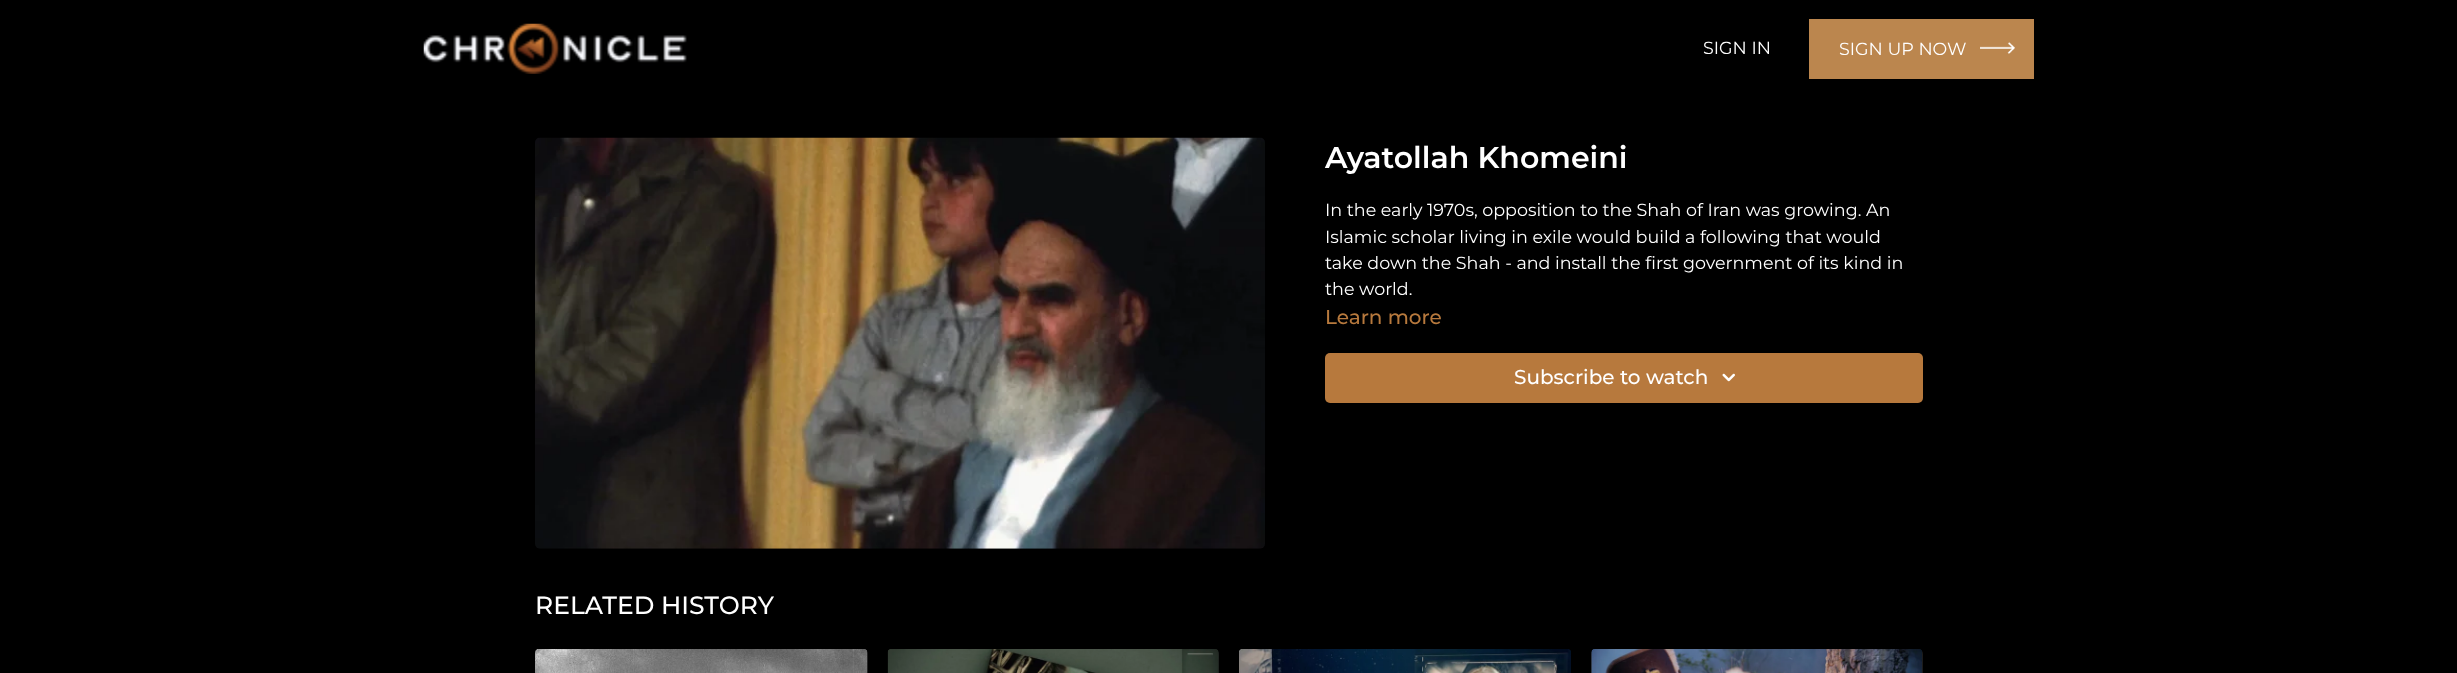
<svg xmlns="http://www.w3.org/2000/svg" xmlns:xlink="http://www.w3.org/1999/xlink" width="2457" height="673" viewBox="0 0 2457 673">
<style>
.cls-1{font:17.5px Montserrat;fill:#ffffff}
.cls-2{font:600 30px Montserrat;fill:#ffffff}
.cls-3{font:500 20px Montserrat;fill:#b7793d}
.cls-4{font:500 20px Montserrat;fill:#ffffff}
.cls-5{font:500 25px Montserrat;fill:#ffffff}
</style>
<defs>
<linearGradient id="g1" gradientUnits="userSpaceOnUse" x1="535" y1="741" x2="868" y2="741"><stop offset="0.08" stop-color="#212121"/><stop offset="0.18" stop-color="#1f1f1f"/><stop offset="0.33" stop-color="#1c1c1c"/></linearGradient>
<linearGradient id="g2" gradientUnits="userSpaceOnUse" x1="888" y1="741" x2="1219" y2="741"><stop offset="0.08" stop-color="#212121"/><stop offset="0.18" stop-color="#1f1f1f"/><stop offset="0.33" stop-color="#1c1c1c"/></linearGradient>
<linearGradient id="g3" gradientUnits="userSpaceOnUse" x1="1591" y1="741" x2="1923" y2="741"><stop offset="0.08" stop-color="#212121"/><stop offset="0.18" stop-color="#1f1f1f"/><stop offset="0.33" stop-color="#1c1c1c"/></linearGradient>
</defs>
<rect width="100%" height="100%" fill="#000000"/>
<image xlink:href="image0.png" x="423" y="23" width="264" height="51"/>
<rect fill="#bb864e" x="1809" y="19" width="225" height="60"/>
<image xlink:href="image1.png" x="1980" y="42" width="35" height="12"/>
<image xlink:href="image2.png" x="535" y="137" width="730" height="412"/>
<rect fill="#b7793d" x="1325" y="353" width="598" height="50" rx="5"/>
<image xlink:href="image3.png" x="1722" y="373" width="13" height="9"/>
<rect fill="url(#g1)" x="535" y="649" width="333" height="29" rx="5"/>
<image xlink:href="image4.png" x="535" y="649" width="333" height="24"/>
<rect fill="url(#g2)" x="888" y="649" width="331" height="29" rx="5"/>
<image xlink:href="image5.png" x="887" y="649" width="332" height="24"/>
<image xlink:href="image6.png" x="1239" y="649" width="332" height="24"/>
<rect fill="url(#g3)" x="1591" y="649" width="332" height="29" rx="5"/>
<image xlink:href="image7.png" x="1591" y="649" width="331" height="24"/>
<text class="cls-1" x="1703" y="54">SIGN IN</text>
<text class="cls-1" x="1839" y="55">SIGN UP NOW</text>
<text class="cls-2" x="1325" y="168">Ayatollah Khomeini</text>
<text class="cls-1"><tspan x="1325" y="216">In the early 1970s, opposition to the Shah of Iran was growing. An</tspan><tspan x="1325" y="243">Islamic scholar living in exile would build a following that would</tspan><tspan x="1325" y="269">take down the Shah - and install the first government of its kind in</tspan><tspan x="1325" y="295">the world.</tspan></text>
<text class="cls-3" x="1325" y="324">Learn more</text>
<text class="cls-4" x="1514" y="384">Subscribe to watch</text>
<text class="cls-5" x="535" y="614">RELATED HISTORY</text>
</svg>
